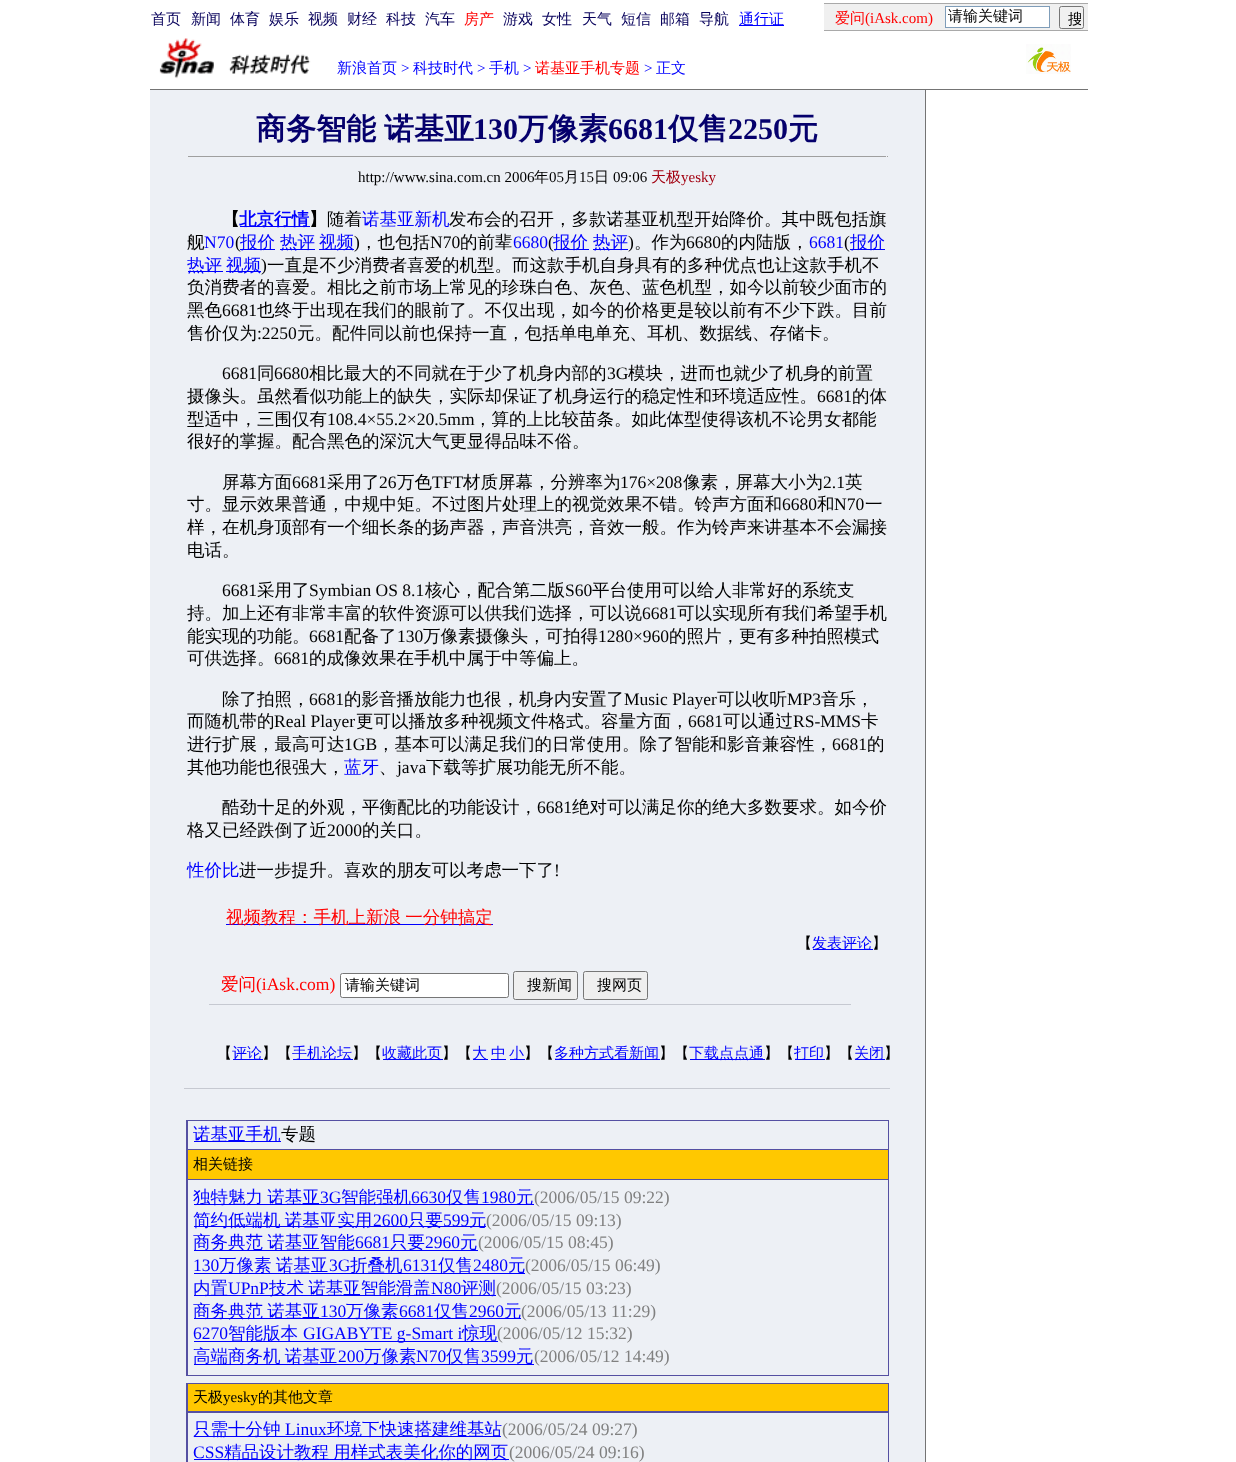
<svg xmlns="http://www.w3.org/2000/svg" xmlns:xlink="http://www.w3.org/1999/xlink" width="1236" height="1462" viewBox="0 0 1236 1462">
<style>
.cls-1{font:500 15px WenQuanYi Zen Hei;fill:#07015b}
.cls-2{font:500 15px WenQuanYi Zen Hei;fill:#ff0000}
.cls-3{font:500 15px WenQuanYi Zen Hei;fill:#0000ff}
.cls-4{font:15px Liberation Serif;fill:#ff0000}
.cls-5{font:500 15px WenQuanYi Zen Hei;fill:#000000}
.cls-6{font:15px Liberation Serif;fill:#0000ff}
.cls-7{font:bold 30px WenQuanYi Zen Hei;fill:#05006c}
.cls-8{font:bold 30px Liberation Serif;fill:#05006c}
.cls-9{font:15px Liberation Serif;fill:#000000}
.cls-10{font:500 15px WenQuanYi Zen Hei;fill:#a20010}
.cls-11{font:15px Liberation Serif;fill:#a20010}
.cls-12{font:bold 17.5px WenQuanYi Zen Hei;fill:#000000}
.cls-13{font:bold 17.5px WenQuanYi Zen Hei;fill:#0000ff}
.cls-14{font:500 17.5px WenQuanYi Zen Hei;fill:#000000}
.cls-15{font:500 17.5px WenQuanYi Zen Hei;fill:#0000ff}
.cls-16{font:17.5px Liberation Serif;fill:#0000ff}
.cls-17{font:17.5px Liberation Serif;fill:#000000}
.cls-18{font:500 17.5px WenQuanYi Zen Hei;fill:#ff0000}
.cls-19{font:17.5px Liberation Serif;fill:#ff0000}
.cls-20{font:17.5px Liberation Serif;fill:#808080}
</style>
<defs>
<clipPath id="clip1"><rect x="1061" y="9" width="20" height="17"/></clipPath>
</defs>
<rect width="100%" height="100%" fill="#ffffff"/>
<rect fill="#0000ff" x="739" y="25" width="45" height="1"/>
<rect fill="#a9a9a9" x="824" y="3" width="264" height="1"/>
<rect fill="#f0f0f0" x="824" y="4" width="264" height="26"/>
<rect fill="#ffffff" stroke="#7f9db9" x="945.5" y="6.5" width="104" height="21"/>
<rect fill="none" stroke="#767676" x="1059.5" y="6.5" width="24" height="22" rx="2"/>
<rect fill="#a9a9a9" x="824" y="30" width="264" height="1"/>
<image xlink:href="image0.png" x="159" y="38" width="152" height="41"/>
<image xlink:href="image1.png" x="1026" y="44" width="45" height="30"/>
<rect fill="#747474" x="150" y="89" width="938" height="1"/>
<rect fill="#edf0f5" x="150" y="90" width="775" height="1372"/>
<rect fill="#9f9f9f" x="188" y="156" width="700" height="1"/>
<rect fill="#eeeeee" x="886" y="156" width="1" height="1"/>
<rect fill="#0000ff" x="240" y="226" width="70" height="1"/>
<rect fill="#0000ff" x="240" y="249" width="35" height="1"/>
<rect fill="#0000ff" x="280" y="249" width="35" height="1"/>
<rect fill="#0000ff" x="319" y="249" width="35" height="1"/>
<rect fill="#0000ff" x="554" y="249" width="35" height="1"/>
<rect fill="#0000ff" x="593" y="249" width="35" height="1"/>
<rect fill="#0000ff" x="850" y="249" width="35" height="1"/>
<rect fill="#0000ff" x="188" y="271" width="35" height="1"/>
<rect fill="#0000ff" x="226" y="271" width="35" height="1"/>
<rect fill="#0000ff" x="226" y="924" width="267" height="1"/>
<rect fill="#0000ff" x="813" y="949" width="60" height="1"/>
<rect fill="#c6c9d1" x="209" y="1004" width="642" height="1"/>
<rect fill="#ffffff" stroke="#767676" x="340.5" y="973.5" width="168" height="24" rx="2"/>
<rect fill="#efefef" stroke="#767676" x="513.5" y="971.5" width="64" height="28" rx="2"/>
<rect fill="#efefef" stroke="#767676" x="583.5" y="971.5" width="64" height="28" rx="2"/>
<rect fill="#0000ff" x="233" y="1059" width="30" height="1"/>
<rect fill="#0000ff" x="293" y="1059" width="60" height="1"/>
<rect fill="#0000ff" x="383" y="1059" width="60" height="1"/>
<rect fill="#0000ff" x="473" y="1059" width="15" height="1"/>
<rect fill="#0000ff" x="491" y="1059" width="15" height="1"/>
<rect fill="#0000ff" x="510" y="1059" width="15" height="1"/>
<rect fill="#0000ff" x="555" y="1059" width="105" height="1"/>
<rect fill="#0000ff" x="690" y="1059" width="75" height="1"/>
<rect fill="#0000ff" x="795" y="1059" width="30" height="1"/>
<rect fill="#0000ff" x="855" y="1059" width="30" height="1"/>
<rect fill="#c6c9d1" x="184" y="1088" width="706" height="1"/>
<rect fill="#5550a2" x="186" y="1120" width="703" height="256"/>
<rect fill="#edf0f5" x="188" y="1121" width="700" height="28"/>
<rect fill="#0000ff" x="194" y="1141" width="87" height="1"/>
<rect fill="#ffc800" x="188" y="1150" width="700" height="29"/>
<rect fill="#edf0f5" x="188" y="1180" width="700" height="195"/>
<rect fill="#0000ff" x="194" y="1204" width="340" height="1"/>
<rect fill="#0000ff" x="194" y="1226" width="292" height="1"/>
<rect fill="#0000ff" x="194" y="1250" width="284" height="1"/>
<rect fill="#0000ff" x="194" y="1273" width="331" height="1"/>
<rect fill="#0000ff" x="194" y="1295" width="302" height="1"/>
<rect fill="#0000ff" x="194" y="1318" width="327" height="1"/>
<rect fill="#0000ff" x="194" y="1341" width="304" height="1"/>
<rect fill="#0000ff" x="194" y="1364" width="340" height="1"/>
<rect fill="#5550a2" x="186" y="1383" width="703" height="79"/>
<rect fill="#ffc800" x="188" y="1384" width="700" height="27"/>
<rect fill="#edf0f5" x="188" y="1413" width="700" height="49"/>
<rect fill="#0000ff" x="194" y="1436" width="307" height="1"/>
<rect fill="#0000ff" x="194" y="1459" width="315" height="1"/>
<rect fill="#747474" x="925" y="90" width="1" height="1372"/>
<text class="cls-1" x="151" y="24">首页</text>
<text class="cls-1" x="191" y="24">新闻</text>
<text class="cls-1" x="230" y="24">体育</text>
<text class="cls-1" x="269" y="24">娱乐</text>
<text class="cls-1" x="308" y="24">视频</text>
<text class="cls-1" x="347" y="24">财经</text>
<text class="cls-1" x="386" y="24">科技</text>
<text class="cls-1" x="425" y="24">汽车</text>
<text class="cls-2" x="464" y="24">房产</text>
<text class="cls-1" x="503" y="24">游戏</text>
<text class="cls-1" x="542" y="24">女性</text>
<text class="cls-1" x="582" y="24">天气</text>
<text class="cls-1" x="621" y="24">短信</text>
<text class="cls-1" x="660" y="24">邮箱</text>
<text class="cls-1" x="699" y="24">导航</text>
<text class="cls-3" x="739" y="24">通行证</text>
<text class="cls-2" x="835" y="23">爱问</text>
<text class="cls-4" x="865" y="23">(iAsk.com)</text>
<text class="cls-5" x="948" y="21">请输关键词</text>
<g clip-path="url(#clip1)">
<text class="cls-5" x="1068" y="24">搜</text>
</g>
<text class="cls-3" x="337" y="73">新浪首页</text>
<text class="cls-6" x="401" y="73">&gt;</text>
<text class="cls-3" x="413" y="73">科技时代</text>
<text class="cls-6" x="477" y="73">&gt;</text>
<text class="cls-3" x="489" y="73">手机</text>
<text class="cls-6" x="523" y="73">&gt;</text>
<text class="cls-2" x="535" y="73">诺基亚手机专题</text>
<text class="cls-6" x="644" y="73">&gt;</text>
<text class="cls-3" x="656" y="73">正文</text>
<text class="cls-7" x="256" y="139" word-spacing="-1">商务智能 诺基亚</text>
<text class="cls-8" x="473" y="139">130</text>
<text class="cls-7" x="518" y="139">万像素</text>
<text class="cls-8" x="608" y="139">6681</text>
<text class="cls-7" x="668" y="139">仅售</text>
<text class="cls-8" x="728" y="139">2250</text>
<text class="cls-7" x="788" y="139">元</text>
<text class="cls-9" x="358" y="182">http://www.sina.com.cn 2006</text>
<text class="cls-5" x="534" y="182">年</text>
<text class="cls-9" x="549" y="182">05</text>
<text class="cls-5" x="564" y="182">月</text>
<text class="cls-9" x="579" y="182">15</text>
<text class="cls-5" x="594" y="182">日</text>
<text class="cls-9" x="613" y="182">09:06</text>
<text class="cls-10" x="651" y="182">天极</text>
<text class="cls-11" x="681" y="182">yesky</text>
<text class="cls-12" x="222" y="225">【</text>
<text class="cls-13" x="239" y="225">北京行情</text>
<text class="cls-12" x="309" y="225">】</text>
<text class="cls-14" x="327" y="225">随着</text>
<text class="cls-15" x="362" y="225">诺基亚新机</text>
<text class="cls-14" x="449" y="225">发布会的召开，多款诺基亚机型开始降价。其中既包括旗</text>
<text class="cls-14" x="187" y="248">舰</text>
<text class="cls-16" x="204" y="248">N70</text>
<text class="cls-17" x="235" y="248">(</text>
<text class="cls-15" x="240" y="248">报价</text>
<text class="cls-15" x="280" y="248">热评</text>
<text class="cls-15" x="319" y="248">视频</text>
<text class="cls-17" x="354" y="248">)</text>
<text class="cls-14" x="360" y="248">，也包括</text>
<text class="cls-17" x="430" y="248">N70</text>
<text class="cls-14" x="460" y="248">的前辈</text>
<text class="cls-16" x="513" y="248">6680</text>
<text class="cls-17" x="548" y="248">(</text>
<text class="cls-15" x="553" y="248">报价</text>
<text class="cls-15" x="593" y="248">热评</text>
<text class="cls-17" x="628" y="248">)</text>
<text class="cls-14" x="634" y="248">。作为</text>
<text class="cls-17" x="686" y="248">6680</text>
<text class="cls-14" x="721" y="248">的内陆版，</text>
<text class="cls-16" x="809" y="248">6681</text>
<text class="cls-17" x="844" y="248">(</text>
<text class="cls-15" x="850" y="248">报价</text>
<text class="cls-15" x="187" y="271">热评</text>
<text class="cls-15" x="226" y="271">视频</text>
<text class="cls-17" x="261" y="271">)</text>
<text class="cls-14" x="267" y="271">一直是不少消费者喜爱的机型。而这款手机自身具有的多种优点也让这款手机不</text>
<text class="cls-14"><tspan x="187" y="293">负消费者的喜爱。相比之前市场上常见的珍珠白色、灰色、蓝色机型，如今以前较少面市的</tspan><tspan x="187" y="316">黑色</tspan></text>
<text class="cls-17" x="222" y="316">6681</text>
<text class="cls-14" x="257" y="316">也终于出现在我们的眼前了。不仅出现，如今的价格更是较以前有不少下跌。目前</text>
<text class="cls-14" x="187" y="339">售价仅为</text>
<text class="cls-17" x="257" y="339">:2250</text>
<text class="cls-14" x="297" y="339">元。配件同以前也保持一直，包括单电单充、耳机、数据线、存储卡。</text>
<text class="cls-17" x="222" y="379">6681</text>
<text class="cls-14" x="257" y="379">同</text>
<text class="cls-17" x="274" y="379">6680</text>
<text class="cls-14" x="309" y="379">相比最大的不同就在于少了机身内部的</text>
<text class="cls-17" x="607" y="379">3G</text>
<text class="cls-14" x="628" y="379">模块，进而也就少了机身的前置</text>
<text class="cls-14" x="187" y="402">摄像头。虽然看似功能上的缺失，实际却保证了机身运行的稳定性和环境适应性。</text>
<text class="cls-17" x="817" y="402">6681</text>
<text class="cls-14" x="852" y="402">的体</text>
<text class="cls-14" x="187" y="425">型适中，三围仅有</text>
<text class="cls-17" x="327" y="425">108.4×55.2×20.5mm</text>
<text class="cls-14" x="474" y="425">，算的上比较苗条。如此体型使得该机不论男女都能</text>
<text class="cls-14" x="187" y="447">很好的掌握。配合黑色的深沉大气更显得品味不俗。</text>
<text class="cls-14" x="222" y="488">屏幕方面</text>
<text class="cls-17" x="292" y="488">6681</text>
<text class="cls-14" x="327" y="488">采用了</text>
<text class="cls-17" x="379" y="488">26</text>
<text class="cls-14" x="397" y="488">万色</text>
<text class="cls-17" x="432" y="488">TFT</text>
<text class="cls-14" x="463" y="488">材质屏幕，分辨率为</text>
<text class="cls-17" x="620" y="488">176×208</text>
<text class="cls-14" x="683" y="488">像素，屏幕大小为</text>
<text class="cls-17" x="823" y="488">2.1</text>
<text class="cls-14" x="845" y="488">英</text>
<text class="cls-14" x="187" y="510">寸。显示效果普通，中规中矩。不过图片处理上的视觉效果不错。铃声方面和</text>
<text class="cls-17" x="782" y="510">6680</text>
<text class="cls-14" x="817" y="510">和</text>
<text class="cls-17" x="834" y="510">N70</text>
<text class="cls-14" x="865" y="510">一</text>
<text class="cls-14"><tspan x="187" y="533">样，在机身顶部有一个细长条的扬声器，声音洪亮，音效一般。作为铃声来讲基本不会漏接</tspan><tspan x="187" y="556">电话。</tspan></text>
<text class="cls-17" x="222" y="596">6681</text>
<text class="cls-14" x="257" y="596">采用了</text>
<text class="cls-17" x="309" y="596">Symbian OS 8.1</text>
<text class="cls-14" x="425" y="596">核心，配合第二版</text>
<text class="cls-17" x="565" y="596">S60</text>
<text class="cls-14" x="592" y="596">平台使用可以给人非常好的系统支</text>
<text class="cls-14" x="187" y="619">持。加上还有非常丰富的软件资源可以供我们选择，可以说</text>
<text class="cls-17" x="642" y="619">6681</text>
<text class="cls-14" x="677" y="619">可以实现所有我们希望手机</text>
<text class="cls-14" x="187" y="642">能实现的功能。</text>
<text class="cls-17" x="309" y="642">6681</text>
<text class="cls-14" x="344" y="642">配备了</text>
<text class="cls-17" x="397" y="642">130</text>
<text class="cls-14" x="423" y="642">万像素摄像头，可拍得</text>
<text class="cls-17" x="598" y="642">1280×960</text>
<text class="cls-14" x="669" y="642">的照片，更有多种拍照模式</text>
<text class="cls-14" x="187" y="664">可供选择。</text>
<text class="cls-17" x="274" y="664">6681</text>
<text class="cls-14" x="309" y="664">的成像效果在手机中属于中等偏上。</text>
<text class="cls-14" x="222" y="705">除了拍照，</text>
<text class="cls-17" x="309" y="705">6681</text>
<text class="cls-14" x="344" y="705">的影音播放能力也很，机身内安置了</text>
<text class="cls-17" x="624" y="705">Music Player</text>
<text class="cls-14" x="717" y="705">可以收听</text>
<text class="cls-17" x="787" y="705">MP3</text>
<text class="cls-14" x="821" y="705">音乐，</text>
<text class="cls-14" x="187" y="727">而随机带的</text>
<text class="cls-17" x="274" y="727">Real Player</text>
<text class="cls-14" x="356" y="727">更可以播放多种视频文件格式。容量方面，</text>
<text class="cls-17" x="688" y="727">6681</text>
<text class="cls-14" x="723" y="727">可以通过</text>
<text class="cls-17" x="793" y="727">RS-MMS</text>
<text class="cls-14" x="861" y="727">卡</text>
<text class="cls-14" x="187" y="750">进行扩展，最高可达</text>
<text class="cls-17" x="344" y="750">1GB</text>
<text class="cls-14" x="377" y="750">，基本可以满足我们的日常使用。除了智能和影音兼容性，</text>
<text class="cls-17" x="832" y="750">6681</text>
<text class="cls-14" x="867" y="750">的</text>
<text class="cls-14" x="187" y="773">其他功能也很强大，</text>
<text class="cls-15" x="344" y="773">蓝牙</text>
<text class="cls-14" x="379" y="773">、</text>
<text class="cls-17" x="397" y="773">java</text>
<text class="cls-14" x="426" y="773">下载等扩展功能无所不能。</text>
<text class="cls-14" x="222" y="813">酷劲十足的外观，平衡配比的功能设计，</text>
<text class="cls-17" x="537" y="813">6681</text>
<text class="cls-14" x="572" y="813">绝对可以满足你的绝大多数要求。如今价</text>
<text class="cls-14" x="187" y="836">格又已经跌倒了近</text>
<text class="cls-17" x="327" y="836">2000</text>
<text class="cls-14" x="362" y="836">的关口。</text>
<text class="cls-15" x="187" y="876">性价比</text>
<text class="cls-14" x="239" y="876">进一步提升。喜欢的朋友可以考虑一下了</text>
<text class="cls-17" x="554" y="876">!</text>
<text class="cls-18" x="226" y="923" word-spacing="-1">视频教程：手机上新浪 一分钟搞定</text>
<text class="cls-5" x="797" y="948">【</text>
<text class="cls-3" x="812" y="948">发表评论</text>
<text class="cls-5" x="872" y="948">】</text>
<text class="cls-18" x="221" y="990">爱问</text>
<text class="cls-19" x="256" y="990">(iAsk.com)</text>
<text class="cls-5" x="345" y="990">请输关键词</text>
<text class="cls-5" x="527" y="990">搜新闻</text>
<text class="cls-5" x="597" y="990">搜网页</text>
<text class="cls-5" x="217" y="1058">【</text>
<text class="cls-3" x="232" y="1058">评论</text>
<text class="cls-5" x="262" y="1058">】【</text>
<text class="cls-3" x="292" y="1058">手机论坛</text>
<text class="cls-5" x="352" y="1058">】【</text>
<text class="cls-3" x="382" y="1058">收藏此页</text>
<text class="cls-5" x="442" y="1058">】【</text>
<text class="cls-3" x="472" y="1058">大</text>
<text class="cls-3" x="491" y="1058">中</text>
<text class="cls-3" x="509" y="1058">小</text>
<text class="cls-5" x="524" y="1058">】【</text>
<text class="cls-3" x="554" y="1058">多种方式看新闻</text>
<text class="cls-5" x="659" y="1058">】【</text>
<text class="cls-3" x="689" y="1058">下载点点通</text>
<text class="cls-5" x="764" y="1058">】【</text>
<text class="cls-3" x="794" y="1058">打印</text>
<text class="cls-5" x="824" y="1058">】【</text>
<text class="cls-3" x="854" y="1058">关闭</text>
<text class="cls-5" x="884" y="1058">】</text>
<text class="cls-15" x="193" y="1140">诺基亚手机</text>
<text class="cls-14" x="281" y="1140">专题</text>
<text class="cls-5" x="193" y="1169">相关链接</text>
<text class="cls-15" x="193" y="1203" word-spacing="-1">独特魅力 诺基亚</text>
<text class="cls-16" x="320" y="1203">3G</text>
<text class="cls-15" x="341" y="1203">智能强机</text>
<text class="cls-16" x="411" y="1203">6630</text>
<text class="cls-15" x="446" y="1203">仅售</text>
<text class="cls-16" x="481" y="1203">1980</text>
<text class="cls-15" x="516" y="1203">元</text>
<text class="cls-20" x="534" y="1203">(2006/05/15 09:22)</text>
<text class="cls-15" x="193" y="1226" word-spacing="-1">简约低端机 诺基亚实用</text>
<text class="cls-16" x="373" y="1226">2600</text>
<text class="cls-15" x="408" y="1226">只要</text>
<text class="cls-16" x="443" y="1226">599</text>
<text class="cls-15" x="469" y="1226">元</text>
<text class="cls-20" x="486" y="1226">(2006/05/15 09:13)</text>
<text class="cls-15" x="193" y="1248" word-spacing="-1">商务典范 诺基亚智能</text>
<text class="cls-16" x="355" y="1248">6681</text>
<text class="cls-15" x="390" y="1248">只要</text>
<text class="cls-16" x="425" y="1248">2960</text>
<text class="cls-15" x="460" y="1248">元</text>
<text class="cls-20" x="478" y="1248">(2006/05/15 08:45)</text>
<text class="cls-16" x="193" y="1271">130</text>
<text class="cls-15" x="219" y="1271" word-spacing="-1">万像素 诺基亚</text>
<text class="cls-16" x="329" y="1271">3G</text>
<text class="cls-15" x="350" y="1271">折叠机</text>
<text class="cls-16" x="403" y="1271">6131</text>
<text class="cls-15" x="438" y="1271">仅售</text>
<text class="cls-16" x="473" y="1271">2480</text>
<text class="cls-15" x="508" y="1271">元</text>
<text class="cls-20" x="525" y="1271">(2006/05/15 06:49)</text>
<text class="cls-15" x="193" y="1294">内置</text>
<text class="cls-16" x="228" y="1294">UPnP</text>
<text class="cls-15" x="269" y="1294" word-spacing="-1">技术 诺基亚智能滑盖</text>
<text class="cls-16" x="431" y="1294">N80</text>
<text class="cls-15" x="461" y="1294">评测</text>
<text class="cls-20" x="496" y="1294">(2006/05/15 03:23)</text>
<text class="cls-15" x="193" y="1317" word-spacing="-1">商务典范 诺基亚</text>
<text class="cls-16" x="320" y="1317">130</text>
<text class="cls-15" x="346" y="1317">万像素</text>
<text class="cls-16" x="399" y="1317">6681</text>
<text class="cls-15" x="434" y="1317">仅售</text>
<text class="cls-16" x="469" y="1317">2960</text>
<text class="cls-15" x="504" y="1317">元</text>
<text class="cls-20" x="521" y="1317">(2006/05/13 11:29)</text>
<text class="cls-16" x="193" y="1339">6270</text>
<text class="cls-15" x="228" y="1339">智能版本</text>
<text class="cls-16" x="303" y="1339">GIGABYTE g-Smart i</text>
<text class="cls-15" x="462" y="1339">惊现</text>
<text class="cls-20" x="497" y="1339">(2006/05/12 15:32)</text>
<text class="cls-15" x="193" y="1362" word-spacing="-1">高端商务机 诺基亚</text>
<text class="cls-16" x="338" y="1362">200</text>
<text class="cls-15" x="364" y="1362">万像素</text>
<text class="cls-16" x="416" y="1362">N70</text>
<text class="cls-15" x="446" y="1362">仅售</text>
<text class="cls-16" x="481" y="1362">3599</text>
<text class="cls-15" x="516" y="1362">元</text>
<text class="cls-20" x="534" y="1362">(2006/05/12 14:49)</text>
<text class="cls-5" x="193" y="1402">天极</text>
<text class="cls-9" x="223" y="1402">yesky</text>
<text class="cls-5" x="258" y="1402">的其他文章</text>
<text class="cls-15" x="193" y="1435">只需十分钟</text>
<text class="cls-16" x="285" y="1435">Linux</text>
<text class="cls-15" x="327" y="1435">环境下快速搭建维基站</text>
<text class="cls-20" x="502" y="1435">(2006/05/24 09:27)</text>
<text class="cls-16" x="193" y="1458">CSS</text>
<text class="cls-15" x="224" y="1458" word-spacing="-1">精品设计教程 用样式表美化你的网页</text>
<text class="cls-20" x="509" y="1458">(2006/05/24 09:16)</text>
</svg>
